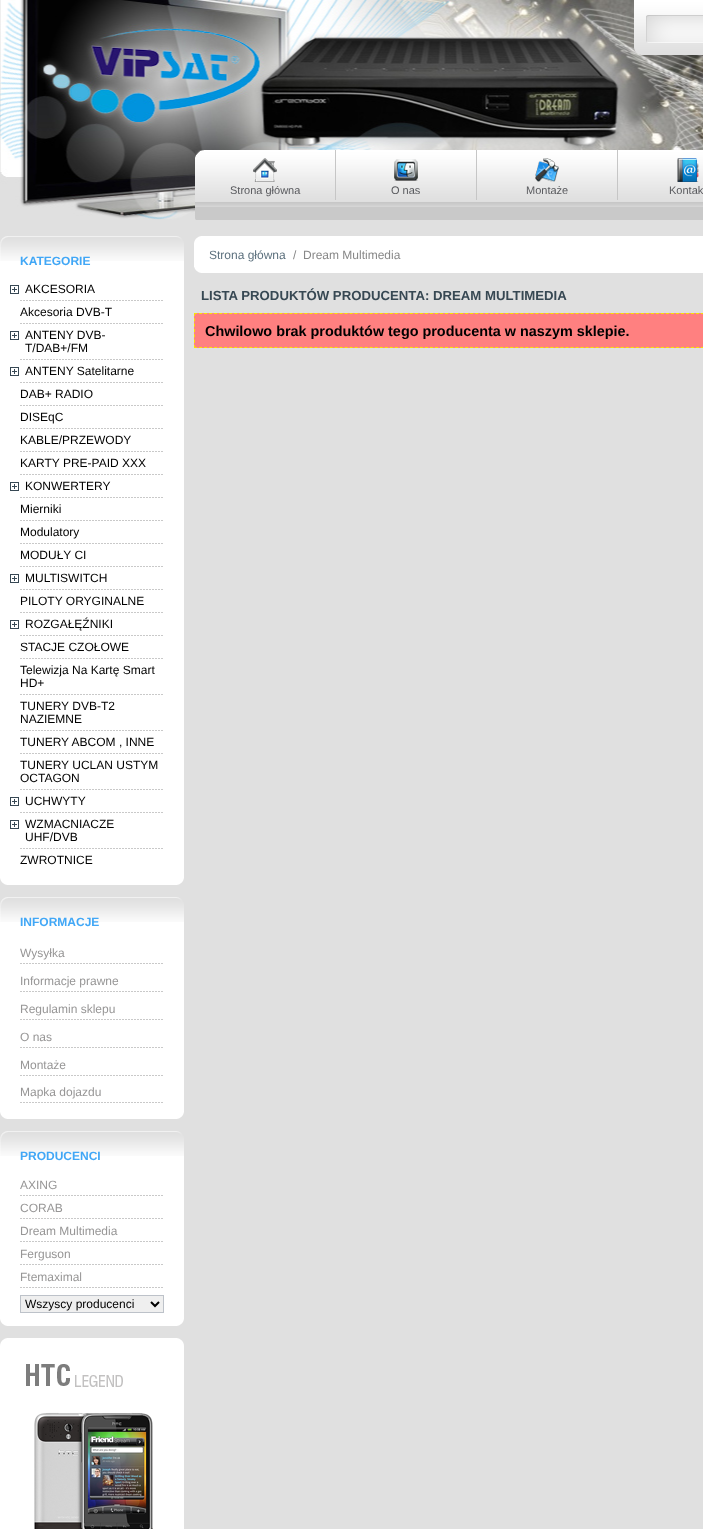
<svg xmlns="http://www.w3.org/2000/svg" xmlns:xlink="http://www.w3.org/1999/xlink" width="703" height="1529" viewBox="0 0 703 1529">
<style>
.cls-1{font:11px Liberation Sans;fill:#595a5e}
.cls-2{font:bold 12px Liberation Sans;fill:#41a7f6}
.cls-3{font:12px Liberation Sans;fill:#000000}
.cls-4{font:12px Liberation Sans;fill:#979696}
.cls-5{font:12px Liberation Sans;fill:#5d717e}
.cls-6{font:12px Liberation Sans;fill:#888888}
.cls-7{font:bold 13.2px Liberation Sans;fill:#374853}
.cls-8{font:bold 14.4px Liberation Sans;fill:#000000}
</style>
<rect width="100%" height="100%" fill="#e0e0e0"/>
<image xlink:href="image0.png" x="0" y="0" width="703" height="220"/>
<image xlink:href="image1.png" x="634" y="0" width="69" height="61"/>
<image xlink:href="image2.png" x="646" y="15" width="57" height="28"/>
<image xlink:href="image3.png" x="195" y="150" width="508" height="70"/>
<image xlink:href="image4.png" x="195" y="150" width="9" height="70"/>
<rect fill="#c6c6c6" x="335" y="150" width="1" height="50"/>
<image xlink:href="image5.png" x="253" y="158" width="24" height="24"/>
<rect fill="#c6c6c6" x="476" y="150" width="1" height="50"/>
<image xlink:href="image6.png" x="394" y="159" width="24" height="22"/>
<rect fill="#c6c6c6" x="617" y="150" width="1" height="50"/>
<image xlink:href="image7.png" x="535" y="158" width="24" height="24"/>
<image xlink:href="image8.png" x="677" y="158" width="22" height="24"/>
<rect fill="#ffffff" x="0" y="261" width="184" height="617"/>
<image xlink:href="image9.png" x="0" y="236" width="184" height="25"/>
<image xlink:href="image10.png" x="0" y="878" width="184" height="7"/>
<image xlink:href="image11.png" x="10" y="285" width="9" height="9"/>
<image xlink:href="image12.png" x="20" y="300" width="143" height="1"/>
<image xlink:href="image12.png" x="20" y="323" width="143" height="1"/>
<image xlink:href="image11.png" x="10" y="331" width="9" height="9"/>
<image xlink:href="image12.png" x="20" y="359" width="143" height="1"/>
<image xlink:href="image11.png" x="10" y="367" width="9" height="9"/>
<image xlink:href="image12.png" x="20" y="382" width="143" height="1"/>
<image xlink:href="image12.png" x="20" y="405" width="143" height="1"/>
<image xlink:href="image12.png" x="20" y="428" width="143" height="1"/>
<image xlink:href="image12.png" x="20" y="451" width="143" height="1"/>
<image xlink:href="image12.png" x="20" y="474" width="143" height="1"/>
<image xlink:href="image11.png" x="10" y="482" width="9" height="9"/>
<image xlink:href="image12.png" x="20" y="497" width="143" height="1"/>
<image xlink:href="image12.png" x="20" y="520" width="143" height="1"/>
<image xlink:href="image12.png" x="20" y="543" width="143" height="1"/>
<image xlink:href="image12.png" x="20" y="566" width="143" height="1"/>
<image xlink:href="image11.png" x="10" y="574" width="9" height="9"/>
<image xlink:href="image12.png" x="20" y="589" width="143" height="1"/>
<image xlink:href="image12.png" x="20" y="612" width="143" height="1"/>
<image xlink:href="image11.png" x="10" y="620" width="9" height="9"/>
<image xlink:href="image12.png" x="20" y="635" width="143" height="1"/>
<image xlink:href="image12.png" x="20" y="658" width="143" height="1"/>
<image xlink:href="image12.png" x="20" y="694" width="143" height="1"/>
<image xlink:href="image12.png" x="20" y="730" width="143" height="1"/>
<image xlink:href="image12.png" x="20" y="753" width="143" height="1"/>
<image xlink:href="image12.png" x="20" y="789" width="143" height="1"/>
<image xlink:href="image11.png" x="10" y="797" width="9" height="9"/>
<image xlink:href="image12.png" x="20" y="812" width="143" height="1"/>
<image xlink:href="image11.png" x="10" y="820" width="9" height="9"/>
<image xlink:href="image12.png" x="20" y="848" width="143" height="1"/>
<rect fill="#ffffff" x="0" y="922" width="184" height="190"/>
<image xlink:href="image9.png" x="0" y="897" width="184" height="25"/>
<image xlink:href="image10.png" x="0" y="1112" width="184" height="7"/>
<image xlink:href="image12.png" x="20" y="963" width="143" height="1"/>
<image xlink:href="image12.png" x="20" y="991" width="143" height="1"/>
<image xlink:href="image12.png" x="20" y="1019" width="143" height="1"/>
<image xlink:href="image12.png" x="20" y="1047" width="143" height="1"/>
<image xlink:href="image12.png" x="20" y="1075" width="143" height="1"/>
<image xlink:href="image12.png" x="20" y="1102" width="143" height="1"/>
<rect fill="#ffffff" x="0" y="1156" width="184" height="163"/>
<image xlink:href="image9.png" x="0" y="1131" width="184" height="25"/>
<image xlink:href="image10.png" x="0" y="1319" width="184" height="7"/>
<image xlink:href="image12.png" x="20" y="1195" width="143" height="1"/>
<image xlink:href="image12.png" x="20" y="1218" width="143" height="1"/>
<image xlink:href="image12.png" x="20" y="1241" width="143" height="1"/>
<image xlink:href="image12.png" x="20" y="1264" width="143" height="1"/>
<image xlink:href="image12.png" x="20" y="1287" width="143" height="1"/>
<rect fill="#efefef" stroke="#bdc2c9" x="20.5" y="1295.5" width="143" height="17"/>
<path fill="none" stroke="#000000" stroke-width="2" d="M151 1302L155 1306L159 1302"/>
<image xlink:href="image13.png" x="0" y="1338" width="184" height="191"/>
<rect fill="#ffffff" x="194" y="236" width="509" height="37"/>
<image xlink:href="image14.png" x="194" y="236" width="7" height="7"/>
<image xlink:href="image15.png" x="194" y="267" width="7" height="6"/>
<rect fill="#ff8080" x="194" y="313" width="509" height="35"/>
<path fill="none" stroke="#f9e400" stroke-dasharray="3 2.02" d="M194 313.5H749"/>
<path fill="none" stroke="#f9e400" stroke-dasharray="3 2.02" d="M194 347.5H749"/>
<path fill="none" stroke="#f9e400" stroke-dasharray="3 2.33" d="M194.5 313V348"/>
<text class="cls-1" x="230" y="194">Strona główna</text>
<text class="cls-1" x="391" y="194">O nas</text>
<text class="cls-1" x="526" y="194">Montaże</text>
<text class="cls-1" x="669" y="194">Kontak</text>
<text class="cls-2" x="20" y="265">KATEGORIE</text>
<text class="cls-3" x="25" y="293">AKCESORIA</text>
<text class="cls-3" x="20" y="316">Akcesoria DVB-T</text>
<text class="cls-3"><tspan x="25" y="339">ANTENY DVB-</tspan><tspan x="25" y="352">T/DAB+/FM</tspan><tspan x="25" y="375">ANTENY Satelitarne</tspan></text>
<text class="cls-3"><tspan x="20" y="398">DAB+ RADIO</tspan><tspan x="20" y="421">DISEqC</tspan><tspan x="20" y="444">KABLE/PRZEWODY</tspan><tspan x="20" y="467">KARTY PRE-PAID XXX</tspan></text>
<text class="cls-3" x="25" y="490">KONWERTERY</text>
<text class="cls-3"><tspan x="20" y="513">Mierniki</tspan><tspan x="20" y="536">Modulatory</tspan><tspan x="20" y="559">MODUŁY CI</tspan></text>
<text class="cls-3" x="25" y="582">MULTISWITCH</text>
<text class="cls-3" x="20" y="605">PILOTY ORYGINALNE</text>
<text class="cls-3" x="25" y="628">ROZGAŁĘŹNIKI</text>
<text class="cls-3"><tspan x="20" y="651">STACJE CZOŁOWE</tspan><tspan x="20" y="674">Telewizja Na Kartę Smart</tspan><tspan x="20" y="687">HD+</tspan><tspan x="20" y="710">TUNERY DVB-T2</tspan><tspan x="20" y="723">NAZIEMNE</tspan><tspan x="20" y="746">TUNERY ABCOM , INNE</tspan><tspan x="20" y="769">TUNERY UCLAN USTYM</tspan><tspan x="20" y="782">OCTAGON</tspan></text>
<text class="cls-3"><tspan x="25" y="805">UCHWYTY</tspan><tspan x="25" y="828">WZMACNIACZE</tspan><tspan x="25" y="841">UHF/DVB</tspan></text>
<text class="cls-3" x="20" y="864">ZWROTNICE</text>
<text class="cls-2" x="20" y="926">INFORMACJE</text>
<text class="cls-4" x="20" y="957">Wysyłka</text>
<text class="cls-4" x="20" y="985">Informacje prawne</text>
<text class="cls-4" x="20" y="1013">Regulamin sklepu</text>
<text class="cls-4" x="20" y="1041">O nas</text>
<text class="cls-4" x="20" y="1069">Montaże</text>
<text class="cls-4" x="20" y="1096">Mapka dojazdu</text>
<text class="cls-2" x="20" y="1160">PRODUCENCI</text>
<text class="cls-4"><tspan x="20" y="1189">AXING</tspan><tspan x="20" y="1212">CORAB</tspan><tspan x="20" y="1235">Dream Multimedia</tspan><tspan x="20" y="1258">Ferguson</tspan><tspan x="20" y="1281">Ftemaximal</tspan></text>
<text class="cls-3" x="25" y="1308">Wszyscy producenci</text>
<text class="cls-5" x="209" y="259">Strona główna</text>
<text class="cls-6" x="293" y="259">/</text>
<text class="cls-6" x="303" y="259">Dream Multimedia</text>
<text class="cls-7" x="201" y="300">LISTA PRODUKTÓW PRODUCENTA: DREAM MULTIMEDIA</text>
<text class="cls-8" x="205" y="336">Chwilowo brak produktów tego producenta w naszym sklepie.</text>
</svg>
